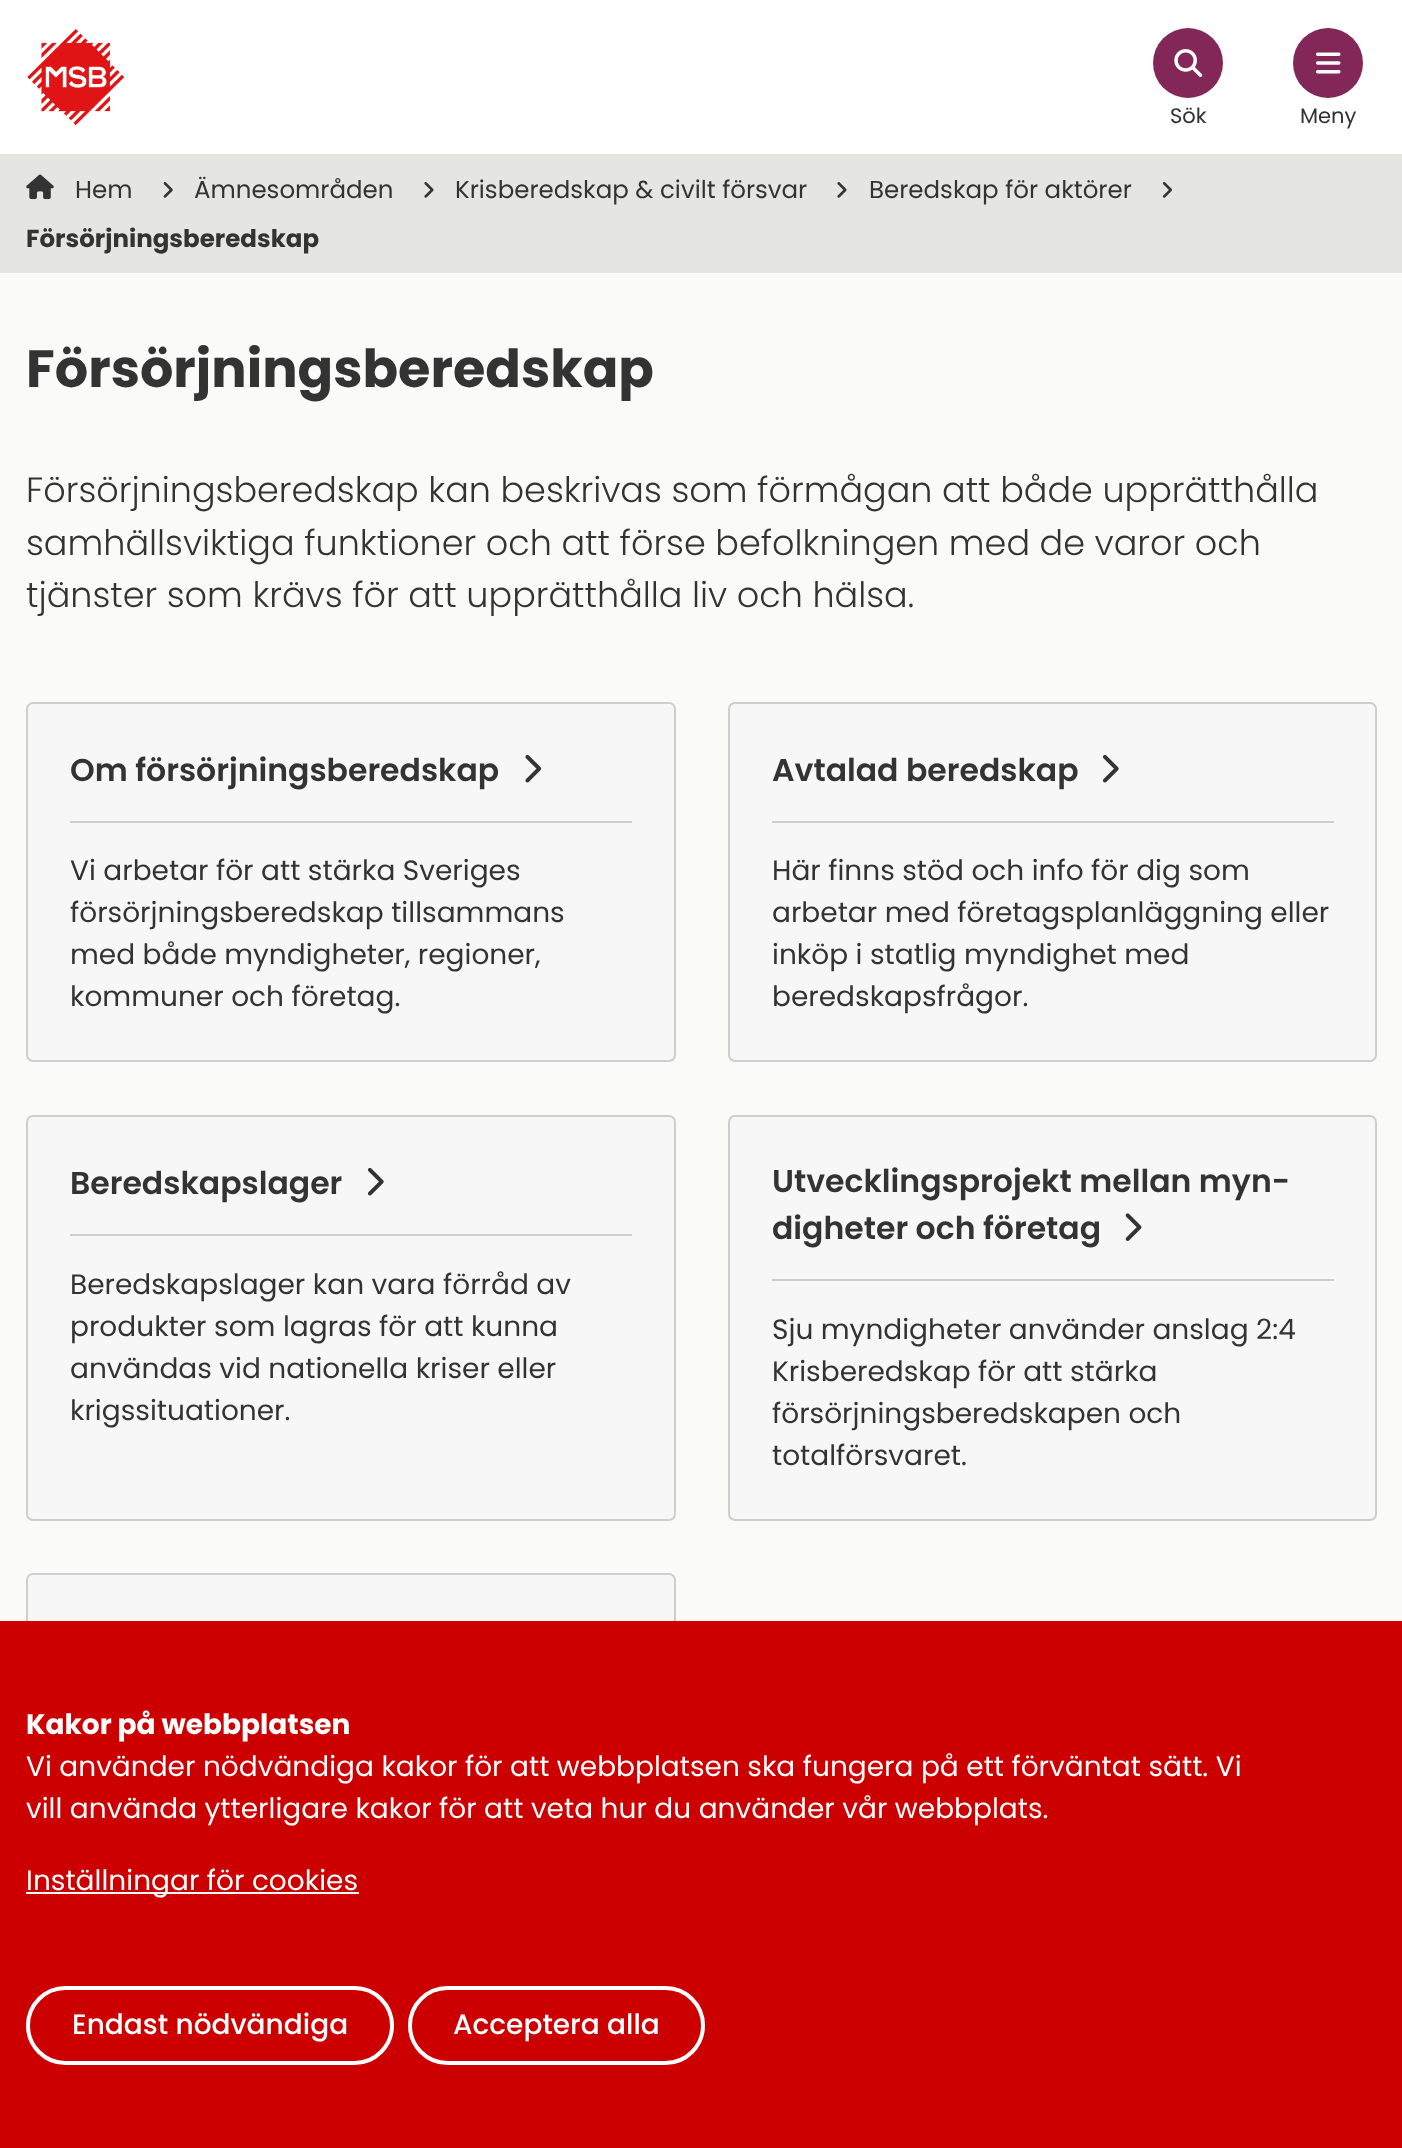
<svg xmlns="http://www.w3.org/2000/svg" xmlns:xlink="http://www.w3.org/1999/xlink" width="1402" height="2148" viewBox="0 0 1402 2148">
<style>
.cls-1{font:21px Poppins;fill:#333333}
.cls-2{font:24.5px Poppins;fill:#333333}
.cls-3{font:bold 24.5px Poppins;fill:#333333}
.cls-4{font:bold 52.5px Poppins;fill:#333333}
.cls-5{font:300 35px Poppins;fill:#333333}
.cls-6{font:600 31.5px Poppins;fill:#333333}
.cls-7{font:28px Poppins;fill:#333333}
.cls-8{font:bold 28px Poppins;fill:#ffffff}
.cls-9{font:28px Poppins;fill:#ffffff}
.cls-10{font:500 28px Poppins;fill:#ffffff}
</style>
<rect width="100%" height="100%" fill="#fafaf9"/>
<rect fill="#ffffff" x="0" y="0" width="1402" height="154"/>
<image xlink:href="image0.png" x="27" y="28" width="98" height="98"/>
<circle fill="#822757" cx="1188" cy="63" r="35"/>
<image xlink:href="image1.png" x="1174" y="49" width="29" height="28"/>
<circle fill="#822757" cx="1328" cy="63" r="35"/>
<image xlink:href="image2.png" x="1316" y="52" width="25" height="22"/>
<rect fill="#e5e5e2" x="0" y="154" width="1402" height="119"/>
<image xlink:href="image3.png" x="26" y="174" width="28" height="26"/>
<image xlink:href="image4.png" x="163" y="182" width="10" height="16"/>
<image xlink:href="image5.png" x="424" y="182" width="10" height="16"/>
<image xlink:href="image5.png" x="837" y="182" width="10" height="16"/>
<image xlink:href="image6.png" x="1162" y="182" width="10" height="16"/>
<rect fill="#f7f7f7" stroke="#cecece" stroke-width="2" x="27" y="703" width="648" height="358" rx="6"/>
<image xlink:href="image7.png" x="525" y="754" width="17" height="29"/>
<rect fill="#cecece" x="70" y="821" width="562" height="2"/>
<rect fill="#f7f7f7" stroke="#cecece" stroke-width="2" x="729" y="703" width="647" height="358" rx="6"/>
<image xlink:href="image8.png" x="1102" y="754" width="17" height="29"/>
<rect fill="#cecece" x="772" y="821" width="562" height="2"/>
<rect fill="#f7f7f7" stroke="#cecece" stroke-width="2" x="27" y="1116" width="648" height="404" rx="6"/>
<image xlink:href="image8.png" x="367" y="1167" width="17" height="29"/>
<rect fill="#cecece" x="70" y="1234" width="562" height="2"/>
<rect fill="#f7f7f7" stroke="#cecece" stroke-width="2" x="729" y="1116" width="647" height="404" rx="6"/>
<image xlink:href="image9.png" x="1125" y="1213" width="17" height="28"/>
<rect fill="#cecece" x="772" y="1279" width="562" height="2"/>
<rect fill="#f7f7f7" stroke="#cecece" stroke-width="2" x="27" y="1574" width="648" height="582" rx="6"/>
<rect fill="#cc0000" x="0" y="1621" width="1402" height="527"/>
<rect fill="#ffffff" x="26" y="1892" width="333" height="2"/>
<rect fill="none" stroke="#ffffff" stroke-width="4" x="28" y="1988" width="364" height="75" rx="37.5"/>
<rect fill="none" stroke="#ffffff" stroke-width="4" x="410" y="1988" width="293" height="75" rx="37.5"/>
<text class="cls-1" x="1170" y="123">Sök</text>
<text class="cls-1" x="1300" y="123">Meny</text>
<text class="cls-2" x="75" y="198">Hem</text>
<text class="cls-2" x="194" y="198">Ämnesområden</text>
<text class="cls-2" x="455" y="198">Krisberedskap &amp; civilt försvar</text>
<text class="cls-2" x="869" y="198">Beredskap för aktörer</text>
<text class="cls-3" x="26" y="247">Försörjningsberedskap</text>
<text class="cls-4" x="26" y="387">Försörjningsberedskap</text>
<text class="cls-5"><tspan x="26" y="502">Försörjningsberedskap kan beskrivas som förmågan att både upprätthålla</tspan><tspan x="26" y="555">samhällsviktiga funktioner och att förse befolkningen med de varor och</tspan><tspan x="26" y="607">tjänster som krävs för att upprätthålla liv och hälsa.</tspan></text>
<text class="cls-6" x="70" y="781">Om försörjningsberedskap</text>
<text class="cls-7"><tspan x="70" y="880">Vi arbetar för att stärka Sveriges</tspan><tspan x="70" y="922">försörjningsberedskap tillsammans</tspan><tspan x="70" y="964">med både myndigheter, regioner,</tspan><tspan x="70" y="1006">kommuner och företag.</tspan></text>
<text class="cls-6" x="772" y="781">Avtalad beredskap</text>
<text class="cls-7"><tspan x="772" y="880">Här finns stöd och info för dig som</tspan><tspan x="772" y="922">arbetar med företagsplanläggning eller</tspan><tspan x="772" y="964">inköp i statlig myndighet med</tspan><tspan x="772" y="1006">beredskapsfrågor.</tspan></text>
<text class="cls-6" x="70" y="1194">Beredskapslager</text>
<text class="cls-7"><tspan x="70" y="1294">Beredskapslager kan vara förråd av</tspan><tspan x="70" y="1336">produkter som lagras för att kunna</tspan><tspan x="70" y="1378">användas vid nationella kriser eller</tspan><tspan x="70" y="1420">krigssituationer.</tspan></text>
<text class="cls-6"><tspan x="772" y="1192">Utvecklingsprojekt mellan myn-</tspan><tspan x="772" y="1239">digheter och företag</tspan></text>
<text class="cls-7"><tspan x="772" y="1339">Sju myndigheter använder anslag 2:4</tspan><tspan x="772" y="1381">Krisberedskap för att stärka</tspan><tspan x="772" y="1423">försörjningsberedskapen och</tspan><tspan x="772" y="1465">totalförsvaret.</tspan></text>
<text class="cls-8" x="26" y="1734">Kakor på webbplatsen</text>
<text class="cls-9"><tspan x="26" y="1776">Vi använder nödvändiga kakor för att webbplatsen ska fungera på ett förväntat sätt. Vi</tspan><tspan x="26" y="1818">vill använda ytterligare kakor för att veta hur du använder vår webbplats.</tspan></text>
<text class="cls-9" x="26" y="1890">Inställningar för cookies</text>
<text class="cls-10" x="72" y="2034">Endast nödvändiga</text>
<text class="cls-10" x="453" y="2034">Acceptera alla</text>
</svg>
